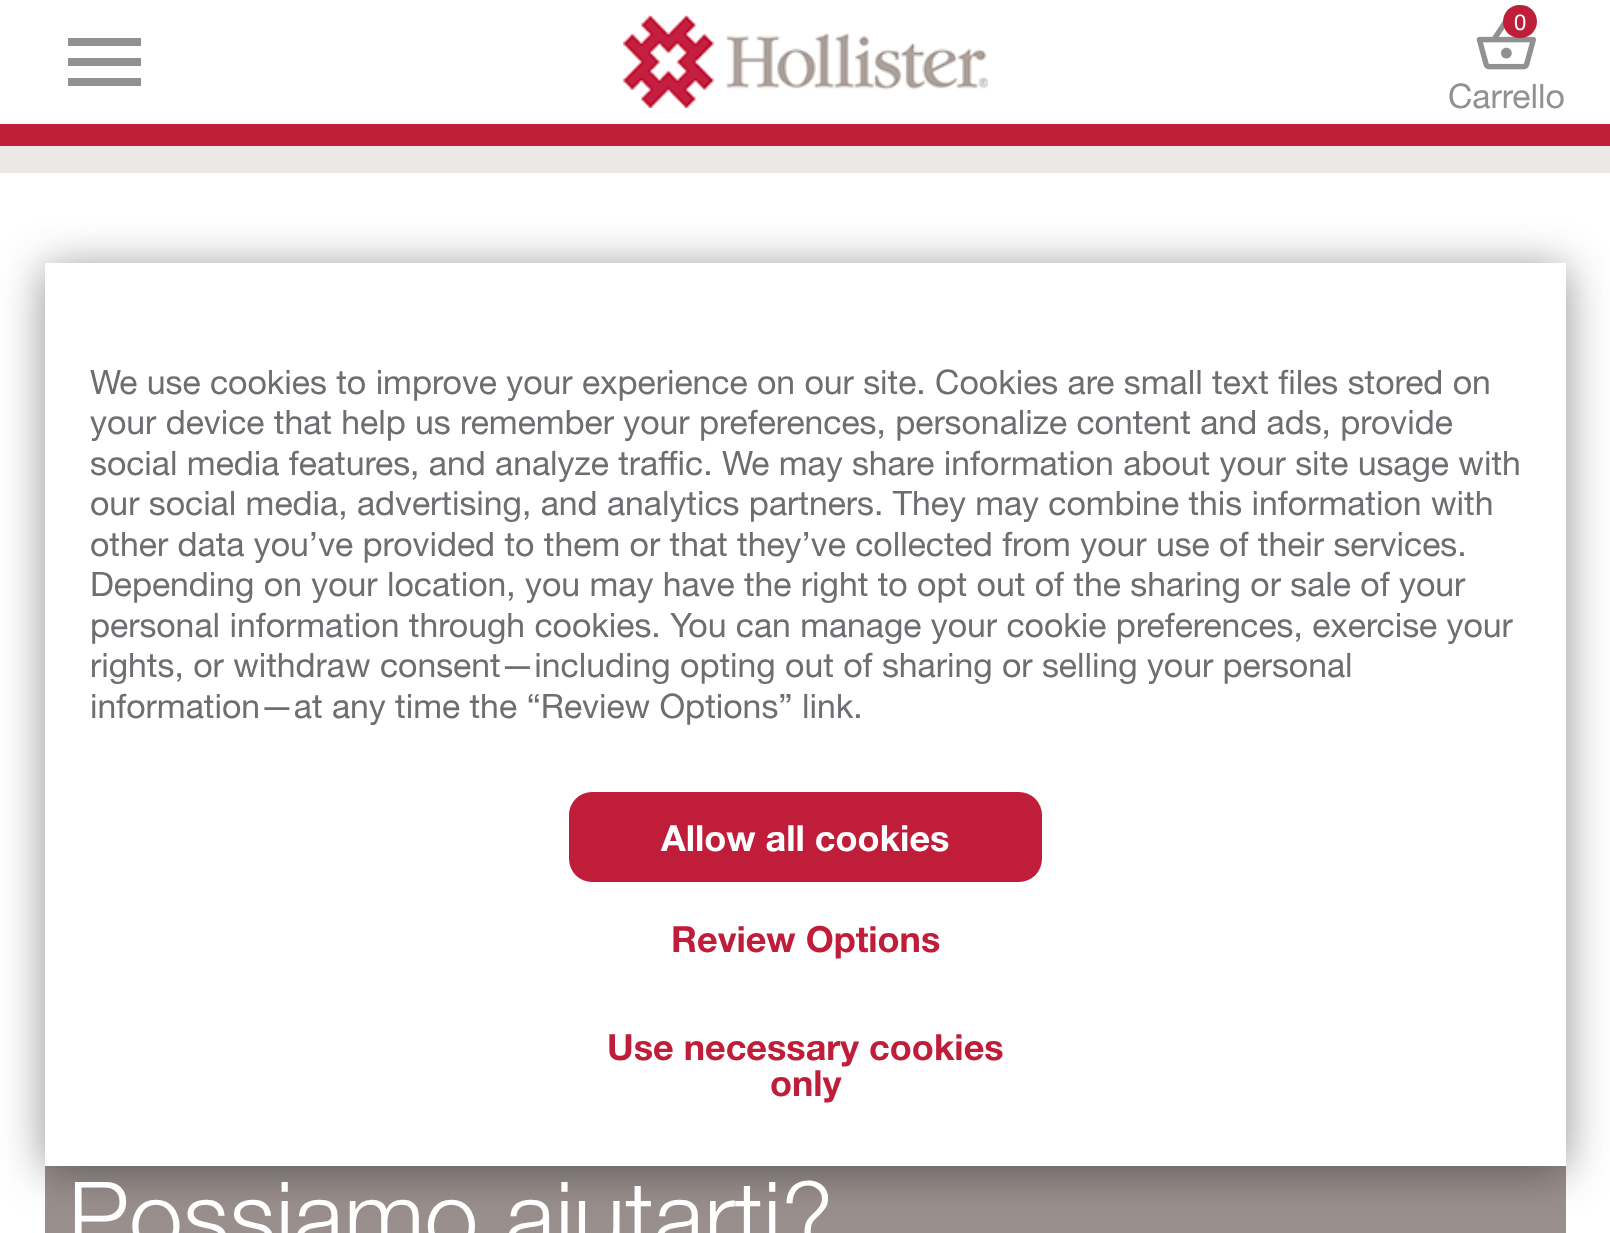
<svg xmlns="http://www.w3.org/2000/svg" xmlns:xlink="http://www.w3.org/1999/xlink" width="1610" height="1233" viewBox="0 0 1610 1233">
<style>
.cls-1{font:22px 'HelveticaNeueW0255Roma';fill:#ffffff}
.cls-2{font:33.75px 'HelveticaNeueW0255Roma';fill:#919191}
.cls-3{font:300 96.75px 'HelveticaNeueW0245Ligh';fill:#ffffff}
.cls-4{font:33.75px 'HelveticaNeueW0255Roma';fill:#6d6e71}
.cls-5{font:bold 36px 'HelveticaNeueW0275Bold';fill:#ffffff}
.cls-6{font:bold 36px 'HelveticaNeueW0275Bold';fill:#bf1d39}
</style>
<rect width="100%" height="100%" fill="#ffffff"/>
<rect fill="#bf1e39" x="0" y="124" width="1610" height="22"/>
<path fill="#919191" d="M68 86H141V78H68ZM68 66H141V58H68ZM68 38V46H141V38Z"/>
<image xlink:href="image0.png" x="623" y="15" width="365" height="93"/>
<image xlink:href="image1.png" x="1476" y="19" width="60" height="51"/>
<rect fill="#bf1e39" x="1503" y="5" width="34" height="33" rx="16.5"/>
<rect fill="#ebe9e8" x="0" y="146" width="1610" height="27"/>
<rect fill="#998f8c" x="45" y="1166" width="1521" height="67"/>
<rect fill="#212121" fill-opacity="0.5" filter="blur(22.5px)" x="45" y="268" width="1521" height="902"/>
<rect fill="#ffffff" x="45" y="263" width="1521" height="903"/>
<rect fill="#bf1d39" x="569" y="792" width="473" height="90" rx="23"/>
<text class="cls-1" x="1514" y="30">0</text>
<text class="cls-2" x="1448" y="108">Carrello</text>
<text class="cls-3" x="68" y="1251">Possiamo aiutarti?</text>
<text class="cls-4"><tspan x="90" y="394">We use cookies to improve your experience on our site. Cookies are small text files stored on</tspan><tspan x="90" y="434">your device that help us remember your preferences, personalize content and ads, provide</tspan><tspan x="90" y="475">social media features, and analyze traffic. We may share information about your site usage with</tspan><tspan x="90" y="515">our social media, advertising, and analytics partners. They may combine this information with</tspan><tspan x="90" y="556">other data you’ve provided to them or that they’ve collected from your use of their services.</tspan><tspan x="90" y="596">Depending on your location, you may have the right to opt out of the sharing or sale of your</tspan><tspan x="90" y="637">personal information through cookies. You can manage your cookie preferences, exercise your</tspan><tspan x="90" y="677">rights, or withdraw consent—including opting out of sharing or selling your personal</tspan><tspan x="90" y="718">information—at any time the “Review Options” link.</tspan></text>
<text class="cls-5" x="661" y="851">Allow all cookies</text>
<text class="cls-6" x="671" y="952">Review Options</text>
<text class="cls-6" x="607" y="1060">Use necessary cookies</text>
<text class="cls-6" x="770" y="1096">only</text>
</svg>
